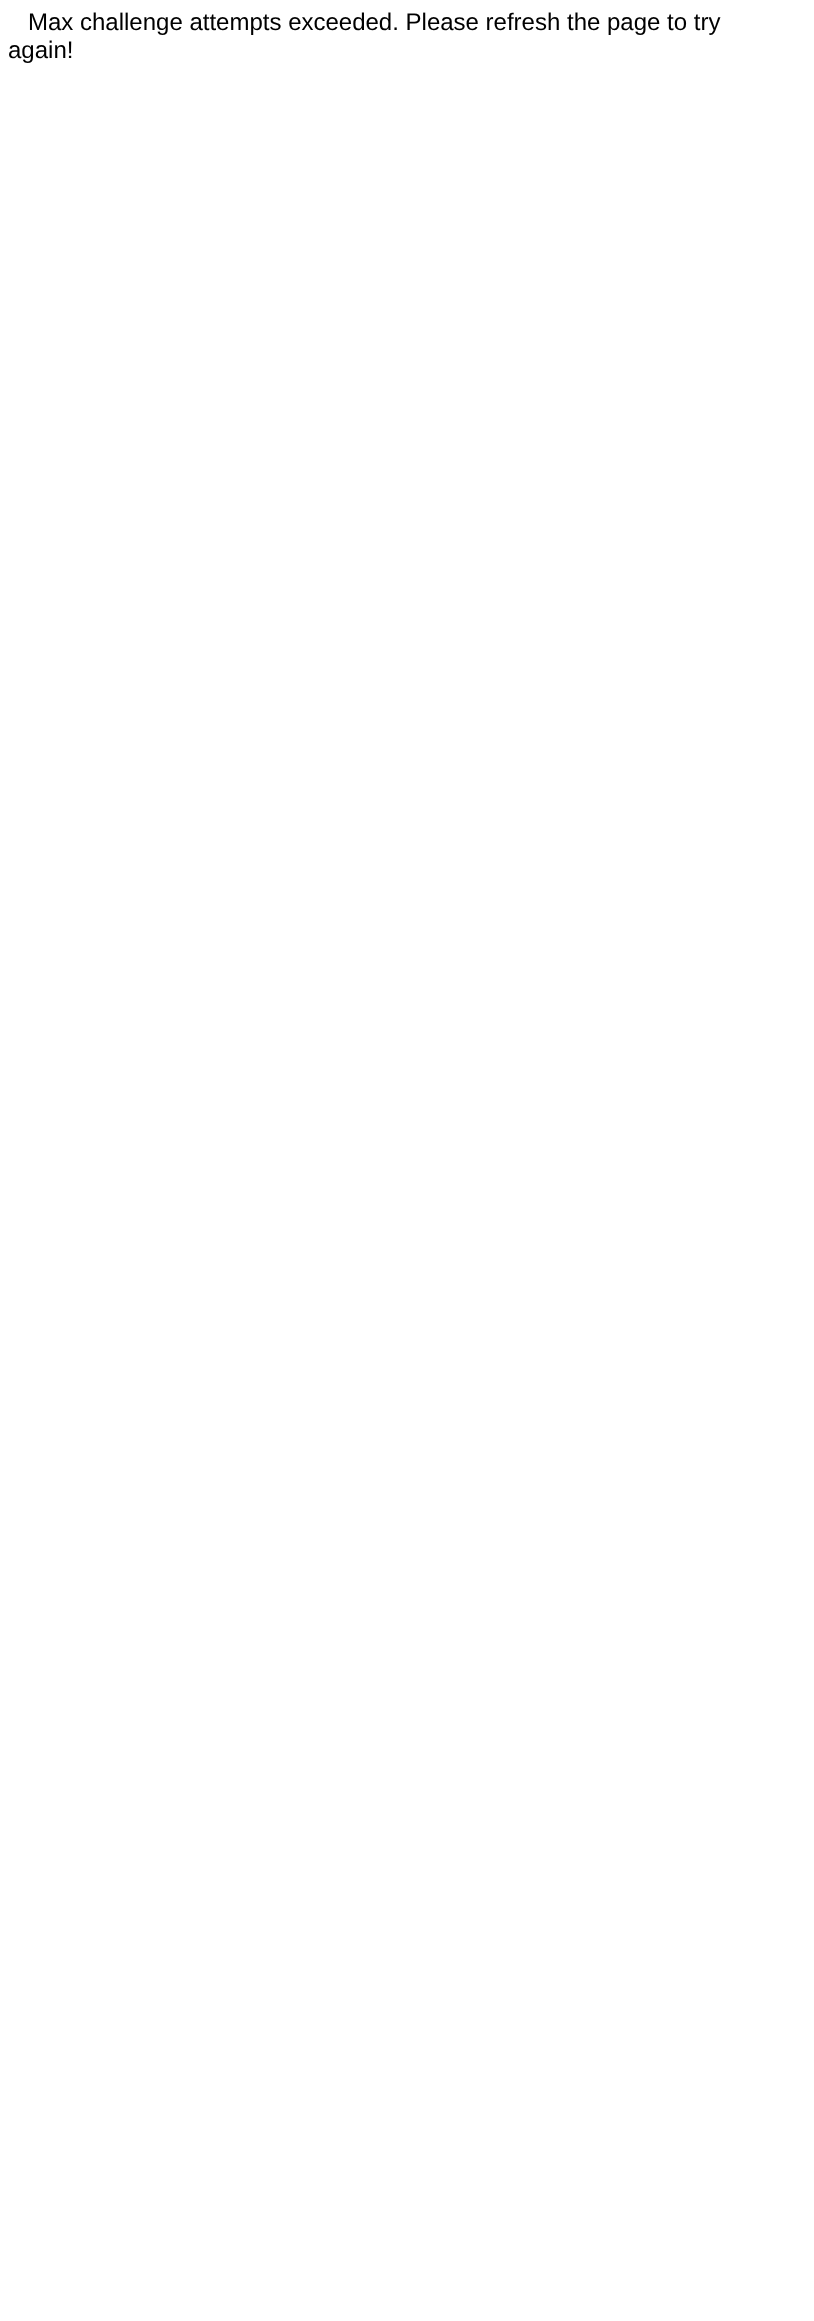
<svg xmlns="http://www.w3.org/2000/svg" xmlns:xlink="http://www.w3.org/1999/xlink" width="814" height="2321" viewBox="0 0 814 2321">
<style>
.cls-1{font:24px Liberation Sans;fill:#000000}
</style>
<rect width="100%" height="100%" fill="#ffffff"/>
<text class="cls-1" x="28" y="30">Max challenge attempts exceeded. Please refresh the page to try</text>
<text class="cls-1" x="8" y="58">again!</text>
</svg>
